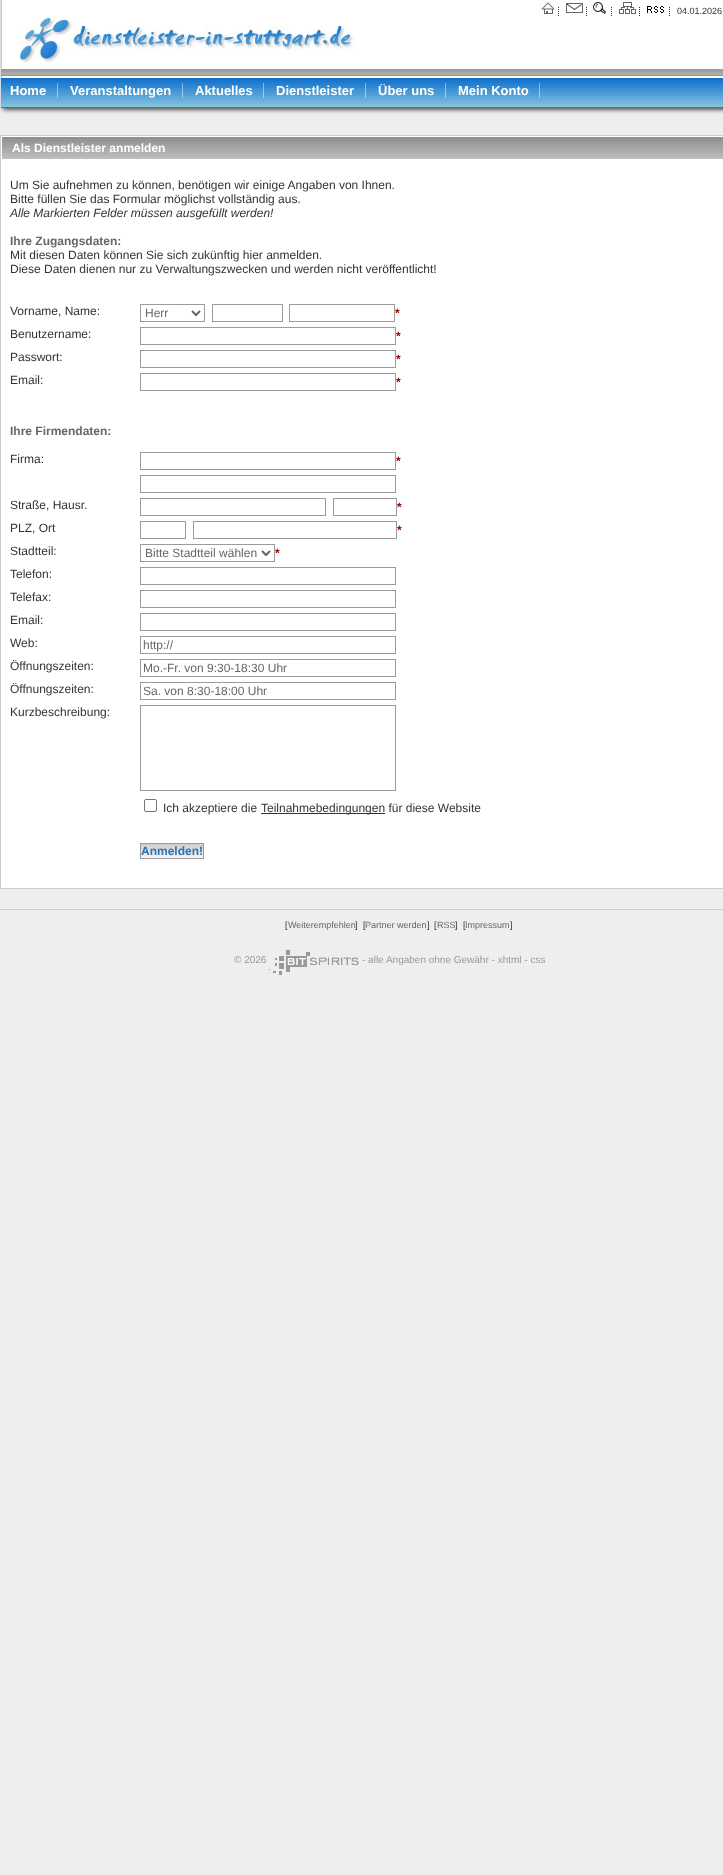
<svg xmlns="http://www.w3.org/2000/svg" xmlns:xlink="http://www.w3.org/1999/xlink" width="723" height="1875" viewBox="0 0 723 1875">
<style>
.cls-1{font:9px Liberation Sans;fill:#333333}
.cls-2{font:bold 13px Liberation Sans;fill:#ffffff}
.cls-3{font:bold 12px Liberation Sans;fill:#ffffff}
.cls-4{font:12px Liberation Sans;fill:#333333}
.cls-5{font:italic 12px Liberation Sans;fill:#333333}
.cls-6{font:bold 12px Liberation Sans;fill:#666666}
.cls-7{font:12px Liberation Sans;fill:#666666}
.cls-8{font:bold 12px Liberation Sans;fill:#990000}
.cls-9{font:bold 12px Liberation Sans;fill:#2e73ae}
.cls-10{font:9px Liberation Sans;fill:#666666}
.cls-11{font:10px Liberation Sans;fill:#999999}
</style>
<rect width="100%" height="100%" fill="#eeeeee"/>
<image xlink:href="image0.png" x="0" y="0" width="723" height="114"/>
<image xlink:href="image1.png" x="541" y="2" width="14" height="12"/>
<image xlink:href="image2.png" x="558" y="7" width="1" height="9"/>
<image xlink:href="image3.png" x="566" y="3" width="17" height="10"/>
<image xlink:href="image2.png" x="586" y="7" width="1" height="9"/>
<image xlink:href="image4.png" x="593" y="2" width="13" height="12"/>
<image xlink:href="image2.png" x="611" y="7" width="1" height="9"/>
<image xlink:href="image5.png" x="619" y="2" width="17" height="12"/>
<image xlink:href="image2.png" x="639" y="7" width="1" height="9"/>
<image xlink:href="image6.png" x="647" y="6" width="17" height="7"/>
<image xlink:href="image2.png" x="669" y="7" width="1" height="9"/>
<image xlink:href="image7.png" x="20" y="18" width="336" height="45"/>
<rect fill="#efefef" fill-opacity="0.5" x="57" y="83" width="1" height="15"/>
<rect fill="#efefef" fill-opacity="0.5" x="182" y="83" width="1" height="15"/>
<rect fill="#efefef" fill-opacity="0.5" x="263" y="83" width="1" height="15"/>
<rect fill="#efefef" fill-opacity="0.5" x="365" y="83" width="1" height="15"/>
<rect fill="#efefef" fill-opacity="0.5" x="445" y="83" width="1" height="15"/>
<rect fill="#efefef" fill-opacity="0.5" x="539" y="83" width="1" height="15"/>
<rect fill="#ffffff" x="1" y="160" width="722" height="728"/>
<rect fill="none" stroke="#cccccc" x="0.5" y="135.5" width="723" height="753"/>
<image xlink:href="image8.png" x="2" y="137" width="721" height="22"/>
<rect fill="none" stroke="#ffffff" x="1.5" y="136.5" width="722" height="23"/>
<rect fill="none" stroke="#9b9b9b" x="140.5" y="304.5" width="64" height="17"/>
<path fill="none" stroke="#666666" stroke-width="2" d="M192 311L196 315L200 311"/>
<rect fill="none" stroke="#9b9b9b" x="212.5" y="304.5" width="70" height="17"/>
<rect fill="none" stroke="#9b9b9b" x="289.5" y="304.5" width="105" height="17"/>
<rect fill="none" stroke="#9b9b9b" x="140.5" y="327.5" width="255" height="17"/>
<rect fill="none" stroke="#9b9b9b" x="140.5" y="350.5" width="255" height="17"/>
<rect fill="none" stroke="#9b9b9b" x="140.5" y="373.5" width="255" height="17"/>
<rect fill="none" stroke="#9b9b9b" x="140.5" y="452.5" width="255" height="17"/>
<rect fill="none" stroke="#9b9b9b" x="140.5" y="475.5" width="255" height="17"/>
<rect fill="none" stroke="#9b9b9b" x="140.5" y="498.5" width="185" height="17"/>
<rect fill="none" stroke="#9b9b9b" x="333.5" y="498.5" width="63" height="17"/>
<rect fill="none" stroke="#9b9b9b" x="140.5" y="521.5" width="45" height="17"/>
<rect fill="none" stroke="#9b9b9b" x="193.5" y="521.5" width="203" height="17"/>
<rect fill="none" stroke="#9b9b9b" x="140.5" y="544.5" width="134" height="17"/>
<path fill="none" stroke="#666666" stroke-width="2" d="M262 551L266 555L270 551"/>
<rect fill="none" stroke="#9b9b9b" x="140.5" y="567.5" width="255" height="17"/>
<rect fill="none" stroke="#9b9b9b" x="140.5" y="590.5" width="255" height="17"/>
<rect fill="none" stroke="#9b9b9b" x="140.5" y="613.5" width="255" height="17"/>
<rect fill="none" stroke="#9b9b9b" x="140.5" y="636.5" width="255" height="17"/>
<rect fill="none" stroke="#9b9b9b" x="140.5" y="659.5" width="255" height="17"/>
<rect fill="none" stroke="#9b9b9b" x="140.5" y="682.5" width="255" height="17"/>
<rect fill="none" stroke="#9b9b9b" x="140.5" y="705.5" width="255" height="85"/>
<rect fill="none" stroke="#767676" x="144.5" y="799.5" width="12" height="12" rx="1.5"/>
<rect fill="#333333" x="261" y="813" width="124" height="1"/>
<image xlink:href="image9.png" x="141" y="844" width="62" height="14"/>
<rect fill="none" stroke="#9b9b9b" x="140.5" y="843.5" width="63" height="15"/>
<rect fill="#cccccc" x="0" y="909" width="723" height="1"/>
<image xlink:href="image10.png" x="269" y="950" width="90" height="25"/>
<text class="cls-1" x="677" y="14">04.01.2026</text>
<text class="cls-2" x="10" y="95">Home</text>
<text class="cls-2" x="70" y="95">Veranstaltungen</text>
<text class="cls-2" x="195" y="95">Aktuelles</text>
<text class="cls-2" x="276" y="95">Dienstleister</text>
<text class="cls-2" x="378" y="95">Über uns</text>
<text class="cls-2" x="458" y="95">Mein Konto</text>
<text class="cls-3" x="12" y="152">Als Dienstleister anmelden</text>
<text class="cls-4"><tspan x="10" y="189">Um Sie aufnehmen zu können, benötigen wir einige Angaben von Ihnen.</tspan><tspan x="10" y="203">Bitte füllen Sie das Formular möglichst vollständig aus.</tspan></text>
<text class="cls-5" x="10" y="217">Alle Markierten Felder müssen ausgefüllt werden!</text>
<text class="cls-6" x="10" y="245">Ihre Zugangsdaten:</text>
<text class="cls-4"><tspan x="10" y="259">Mit diesen Daten können Sie sich zukünftig hier anmelden.</tspan><tspan x="10" y="273">Diese Daten dienen nur zu Verwaltungszwecken und werden nicht veröffentlicht!</tspan></text>
<text class="cls-4" x="10" y="315">Vorname, Name:</text>
<text class="cls-7" x="145" y="317">Herr</text>
<text class="cls-8" x="395" y="317">*</text>
<text class="cls-4" x="10" y="338">Benutzername:</text>
<text class="cls-8" x="396" y="340">*</text>
<text class="cls-4" x="10" y="361">Passwort:</text>
<text class="cls-8" x="396" y="363">*</text>
<text class="cls-4" x="10" y="384">Email:</text>
<text class="cls-8" x="396" y="386">*</text>
<text class="cls-6" x="10" y="435">Ihre Firmendaten:</text>
<text class="cls-4" x="10" y="463">Firma:</text>
<text class="cls-8" x="396" y="465">*</text>
<text class="cls-4" x="10" y="509">Straße, Hausr.</text>
<text class="cls-8" x="397" y="511">*</text>
<text class="cls-4" x="10" y="532">PLZ, Ort</text>
<text class="cls-8" x="397" y="534">*</text>
<text class="cls-4" x="10" y="555">Stadtteil:</text>
<text class="cls-7" x="145" y="557">Bitte Stadtteil wählen</text>
<text class="cls-8" x="275" y="557">*</text>
<text class="cls-4"><tspan x="10" y="578">Telefon:</tspan><tspan x="10" y="601">Telefax:</tspan><tspan x="10" y="624">Email:</tspan><tspan x="10" y="647">Web:</tspan></text>
<text class="cls-7" x="143" y="649">http://</text>
<text class="cls-4" x="10" y="670">Öffnungszeiten:</text>
<text class="cls-7" x="143" y="672">Mo.-Fr. von 9:30-18:30 Uhr</text>
<text class="cls-4" x="10" y="693">Öffnungszeiten:</text>
<text class="cls-7" x="143" y="695">Sa. von 8:30-18:00 Uhr</text>
<text class="cls-4" x="10" y="716">Kurzbeschreibung:</text>
<text class="cls-4" x="163" y="812">Ich akzeptiere die</text>
<text class="cls-4" x="261" y="812">Teilnahmebedingungen für diese Website</text>
<text class="cls-9" x="141" y="855">Anmelden!</text>
<text class="cls-1" x="285" y="928">[</text>
<text class="cls-10" x="288" y="928">Weiterempfehlen</text>
<text class="cls-1" x="355" y="928">]</text>
<text class="cls-1" x="363" y="928">[</text>
<text class="cls-10" x="365" y="928">Partner werden</text>
<text class="cls-1" x="427" y="928">]</text>
<text class="cls-1" x="434" y="928">[</text>
<text class="cls-10" x="437" y="928">RSS</text>
<text class="cls-1" x="455" y="928">]</text>
<text class="cls-1" x="463" y="928">[</text>
<text class="cls-10" x="465" y="928">Impressum</text>
<text class="cls-1" x="510" y="928">]</text>
<text class="cls-11" x="234" y="963">© 2026</text>
<text class="cls-11" x="362" y="963">- alle Angaben ohne Gewähr - xhtml - css</text>
</svg>
